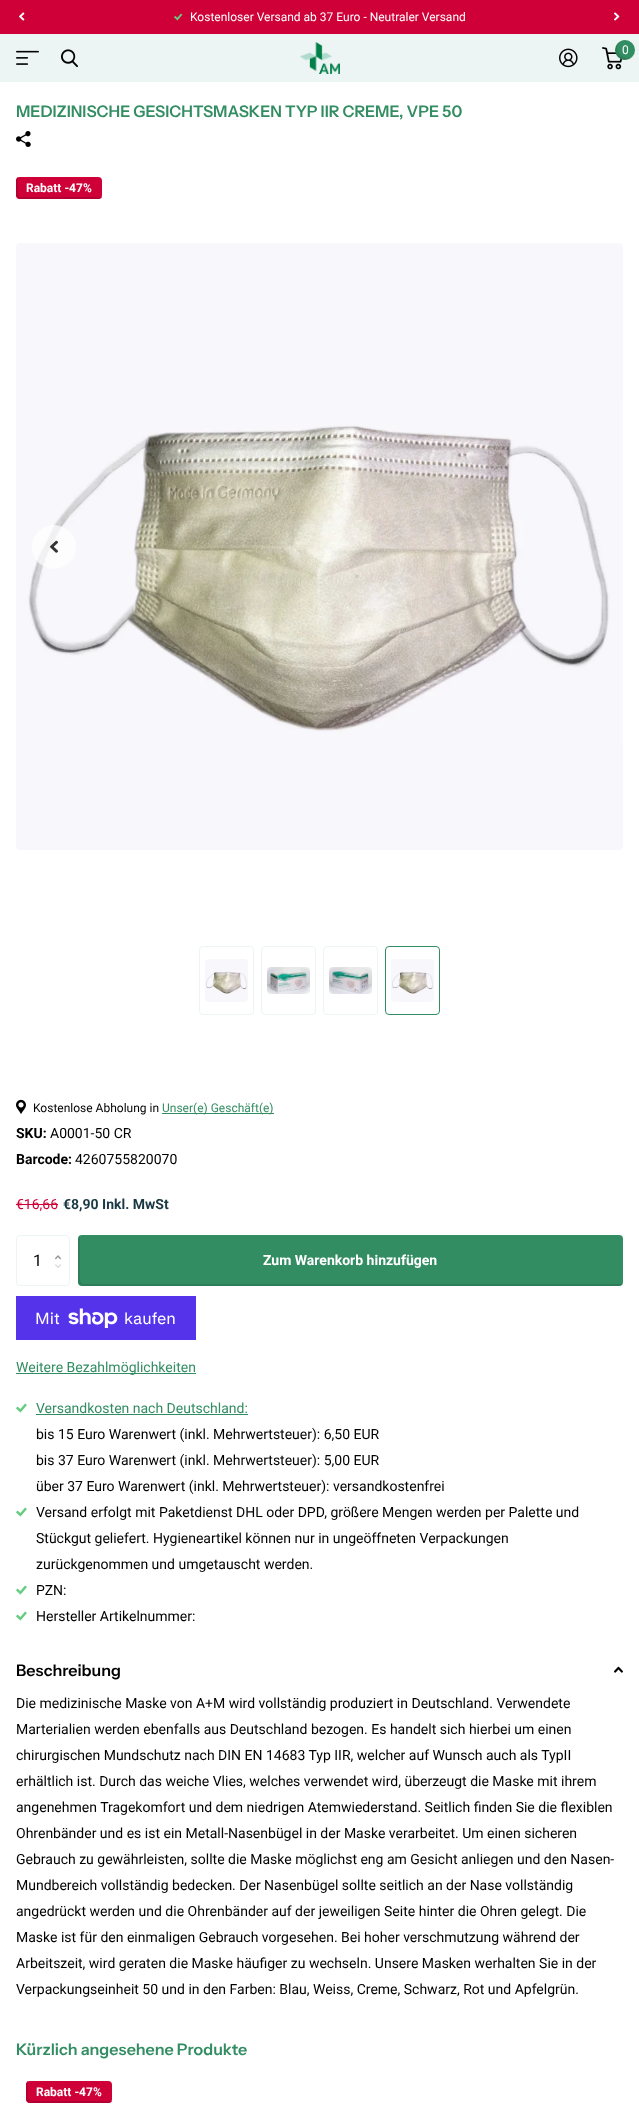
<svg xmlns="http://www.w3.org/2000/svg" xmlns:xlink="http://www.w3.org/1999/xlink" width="639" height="2109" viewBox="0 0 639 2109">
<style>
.cls-1{font:12px Roboto;fill:#ffffff}
.cls-2{font:600 16px Instrument Sans;fill:#338d62}
.cls-3{font:bold 12px Roboto;fill:#ffffff}
.cls-4{font:12px Roboto;fill:#000000}
.cls-5{font:12px Roboto;fill:#338d62}
.cls-6{font:bold 14px Roboto;fill:#000000}
.cls-7{font:14px Roboto;fill:#000000}
.cls-8{font:14px Roboto;fill:#ce0037}
.cls-9{font:bold 14px Roboto;fill:#1a3945}
.cls-10{font:16px Roboto;fill:#000000}
.cls-11{font:bold 14px Roboto;fill:#ffffff}
.cls-12{font:16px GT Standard;fill:#ffffff}
.cls-13{font:14px Roboto;fill:#338d62}
.cls-14{font:600 16px Instrument Sans;fill:#000000}
</style>
<rect width="100%" height="100%" fill="#ffffff"/>
<rect fill="#ce0037" x="0" y="0" width="639" height="34"/>
<image xlink:href="image0.png" x="19" y="12" width="6" height="9"/>
<image xlink:href="image1.png" x="174" y="13" width="9" height="8"/>
<image xlink:href="image2.png" x="614" y="12" width="6" height="9"/>
<rect fill="#edf4f4" x="0" y="34" width="639" height="48"/>
<image xlink:href="image3.png" x="61" y="49" width="17" height="19"/>
<image xlink:href="image4.png" x="300" y="42" width="40" height="32"/>
<image xlink:href="image5.png" x="559" y="48" width="19" height="20"/>
<image xlink:href="image6.png" x="602" y="47" width="20" height="23"/>
<circle fill="#338d62" cx="625" cy="50" r="10"/>
<path fill="#000000" fill-opacity="0.1" d="M633 56.5C624 62.5 612.5 51.5 619 42C614 45.5 613.5 53 618 57C622 61 629 61 633 56.5Z"/>
<image xlink:href="image7.png" x="16" y="50" width="23" height="15"/>
<image xlink:href="image8.png" x="16" y="131" width="15" height="16"/>
<rect fill="#ce0037" x="16" y="177" width="86" height="22" rx="4"/>
<path fill="#b40030" d="M18 177C17 178 16 179 16 181V195C16 197 18 199 20 199H98C100 199 101 198 102 197H100H22C20 197 18 195 18 193V179Z"/>
<image xlink:href="image9.png" x="16" y="243" width="607" height="607"/>
<circle fill="#ffffff" fill-opacity="0.7" cx="54" cy="547" r="22"/>
<image xlink:href="image10.png" x="50" y="540" width="8" height="13"/>
<rect fill="none" stroke="#edf4f4" x="199.5" y="946.5" width="54" height="68" rx="3.5"/>
<image xlink:href="image11.png" x="205" y="959" width="43" height="43"/>
<rect fill="none" stroke="#edf4f4" x="261.5" y="946.5" width="54" height="68" rx="3.5"/>
<image xlink:href="image12.png" x="267" y="967" width="43" height="27"/>
<rect fill="none" stroke="#edf4f4" x="323.5" y="946.5" width="54" height="68" rx="3.5"/>
<image xlink:href="image13.png" x="329" y="967" width="43" height="27"/>
<rect fill="none" stroke="#338d62" x="385.5" y="946.5" width="54" height="68" rx="3.5"/>
<image xlink:href="image14.png" x="391" y="959" width="43" height="43"/>
<image xlink:href="image15.png" x="16" y="1099" width="10" height="15"/>
<rect fill="#338d62" x="162" y="1113" width="112" height="1"/>
<rect fill="#ce0037" x="16" y="1204" width="42" height="1"/>
<rect fill="none" stroke="#edf4f4" x="16.5" y="1235.5" width="53" height="50" rx="3.5"/>
<image xlink:href="image16.png" x="55" y="1255" width="6" height="5"/>
<image xlink:href="image17.png" x="55" y="1264" width="6" height="4"/>
<rect fill="#338d62" x="78" y="1235" width="545" height="51" rx="4"/>
<path fill="#000000" fill-opacity="0.1" d="M80 1235C79 1236 78 1237 78 1239V1282C78 1284 80 1286 82 1286H619C621 1286 622 1285 623 1284H621H84C82 1284 80 1282 80 1280V1237Z"/>
<rect fill="#5433eb" x="16" y="1296" width="180" height="44"/>
<image xlink:href="image18.png" x="68" y="1308" width="50" height="20"/>
<rect fill="#338d62" x="16" y="1373" width="180" height="1"/>
<image xlink:href="image19.png" x="16" y="1403" width="11" height="10"/>
<rect fill="#338d62" x="36" y="1414" width="212" height="1"/>
<image xlink:href="image19.png" x="16" y="1507" width="11" height="10"/>
<image xlink:href="image19.png" x="16" y="1585" width="11" height="10"/>
<image xlink:href="image19.png" x="16" y="1611" width="11" height="10"/>
<image xlink:href="image20.png" x="614" y="1666" width="9" height="7"/>
<rect fill="#ce0037" x="26" y="2081" width="86" height="22" rx="4"/>
<path fill="#b40030" d="M28 2081V2083V2097C28 2099 30 2101 32 2101H110H112C111 2102 110 2103 108 2103H30C28 2103 26 2101 26 2099V2085C26 2083 27 2082 28 2081Z"/>
<text class="cls-1" x="190" y="21">Kostenloser Versand ab 37 Euro - Neutraler Versand</text>
<text class="cls-1" x="622" y="54">0</text>
<text class="cls-2" x="16" y="117">MEDIZINISCHE GESICHTSMASKEN TYP IIR CREME, VPE 50</text>
<text class="cls-3" x="26" y="192">Rabatt -47%</text>
<text class="cls-4" x="33" y="1112">Kostenlose Abholung in</text>
<text class="cls-5" x="162" y="1112">Unser(e) Geschäft(e)</text>
<text class="cls-6" x="16" y="1138">SKU:</text>
<text class="cls-7" x="50" y="1138">A0001-50 CR</text>
<text class="cls-6" x="16" y="1164">Barcode:</text>
<text class="cls-7" x="75" y="1164">4260755820070</text>
<text class="cls-8" x="16" y="1209">€16,66</text>
<text class="cls-9" x="63" y="1209">€8,90 Inkl. MwSt</text>
<text class="cls-10" x="33" y="1266">1</text>
<text class="cls-11" x="263" y="1265">Zum Warenkorb hinzufügen</text>
<text class="cls-12" x="35" y="1324">Mit</text>
<text class="cls-12" x="124" y="1324">kaufen</text>
<text class="cls-13" x="16" y="1372">Weitere Bezahlmöglichkeiten</text>
<text class="cls-13" x="36" y="1413">Versandkosten nach Deutschland:</text>
<text class="cls-7"><tspan x="36" y="1439">bis 15 Euro Warenwert (inkl. Mehrwertsteuer): 6,50 EUR</tspan><tspan x="36" y="1465">bis 37 Euro Warenwert (inkl. Mehrwertsteuer): 5,00 EUR</tspan><tspan x="36" y="1491">über 37 Euro Warenwert (inkl. Mehrwertsteuer): versandkostenfrei</tspan><tspan x="36" y="1517">Versand erfolgt mit Paketdienst DHL oder DPD, größere Mengen werden per Palette und</tspan><tspan x="36" y="1543">Stückgut geliefert. Hygieneartikel können nur in ungeöffneten Verpackungen</tspan><tspan x="36" y="1569">zurückgenommen und umgetauscht werden.</tspan><tspan x="36" y="1595">PZN:</tspan><tspan x="36" y="1621">Hersteller Artikelnummer:</tspan></text>
<text class="cls-14" x="16" y="1676">Beschreibung</text>
<text class="cls-7"><tspan x="16" y="1708">Die medizinische Maske von A+M wird vollständig produziert in Deutschland. Verwendete</tspan><tspan x="16" y="1734">Marterialien werden ebenfalls aus Deutschland bezogen. Es handelt sich hierbei um einen</tspan><tspan x="16" y="1760">chirurgischen Mundschutz nach DIN EN 14683 Typ IIR, welcher auf Wunsch auch als TypII</tspan><tspan x="16" y="1786">erhältlich ist. Durch das weiche Vlies, welches verwendet wird, überzeugt die Maske mit ihrem</tspan><tspan x="16" y="1812">angenehmen Tragekomfort und dem niedrigen Atemwiederstand. Seitlich finden Sie die flexiblen</tspan><tspan x="16" y="1838">Ohrenbänder und es ist ein Metall-Nasenbügel in der Maske verarbeitet. Um einen sicheren</tspan><tspan x="16" y="1864">Gebrauch zu gewährleisten, sollte die Maske möglichst eng am Gesicht anliegen und den Nasen-</tspan><tspan x="16" y="1890">Mundbereich vollständig bedecken. Der Nasenbügel sollte seitlich an der Nase vollständig</tspan><tspan x="16" y="1916">angedrückt werden und die Ohrenbänder auf der jeweiligen Seite hinter die Ohren gelegt. Die</tspan><tspan x="16" y="1942">Maske ist für den einmaligen Gebrauch vorgesehen. Bei hoher verschmutzung während der</tspan><tspan x="16" y="1968">Arbeitszeit, wird geraten die Maske häufiger zu wechseln. Unsere Masken werhalten Sie in der</tspan><tspan x="16" y="1994">Verpackungseinheit 50 und in den Farben: Blau, Weiss, Creme, Schwarz, Rot und Apfelgrün.</tspan></text>
<text class="cls-2" x="16" y="2055">Kürzlich angesehene Produkte</text>
<text class="cls-3" x="36" y="2096">Rabatt -47%</text>
</svg>
